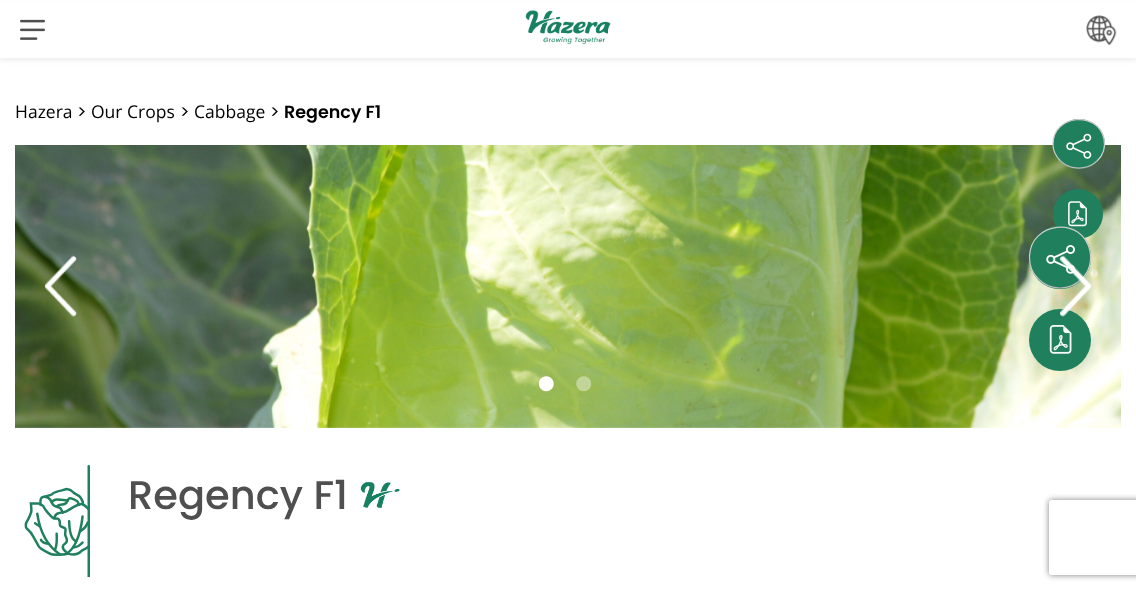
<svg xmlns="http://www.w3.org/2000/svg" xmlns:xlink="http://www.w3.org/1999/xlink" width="1136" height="592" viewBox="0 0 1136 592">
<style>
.cls-1{font:17.5px Open Sans;fill:#000000}
.cls-2{font:17.5px Poppins;fill:#000000}
.cls-3{font:600 17.5px Poppins;fill:#000000}
.cls-4{font:500 40px Poppins;fill:#4f4f4f}
</style>
<defs>
<clipPath id="clip1"><path d="M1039 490H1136V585H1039ZM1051.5 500H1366.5C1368 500 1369 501 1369 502.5V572.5C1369 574 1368 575 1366.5 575H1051.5C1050 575 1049 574 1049 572.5V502.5C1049 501 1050 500 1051.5 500Z" clip-rule="evenodd"/></clipPath>
</defs>
<rect width="100%" height="100%" fill="#ffffff"/>
<rect fill="#9f9f9f" fill-opacity="0.16" filter="blur(2px)" x="0" y="4" width="1136" height="57"/>
<rect fill="#ffffff" x="0" y="2" width="1136" height="56"/>
<image xlink:href="image0.png" x="20" y="19" width="25" height="21"/>
<image xlink:href="image1.png" x="525" y="10" width="86" height="35"/>
<image xlink:href="image2.png" x="1086" y="15" width="31" height="31"/>
<image xlink:href="image3.png" x="15" y="145" width="1106" height="283"/>
<image xlink:href="image4.png" x="45" y="255" width="32" height="62"/>
<circle fill="#20805e" cx="1078" cy="214" r="25"/>
<image xlink:href="image9.png" x="1068" y="201" width="19" height="26"/>
<rect fill="#20805e" x="1029" y="226" width="62" height="63" rx="31"/>
<path fill="none" stroke="#bbbbbb" stroke-width="1.2" d="M1081.5 279C1070 291 1050 291 1038.5 279"/>
<path fill="none" stroke="#cccccc" stroke-width="1.2" d="M1038.5 279C1032.5 273.5 1029.5 265.5 1029.5 257.5C1029.5 221 1083 215.5 1090 251.5C1092 261.5 1089 272 1081.5 279"/>
<image xlink:href="image12.png" x="1046" y="245" width="29" height="29"/>
<circle fill="#20805e" cx="1060" cy="340" r="31"/>
<image xlink:href="image5.png" x="1060" y="255" width="32" height="62"/>
<image xlink:href="image6.png" x="538" y="376" width="16" height="16"/>
<image xlink:href="image7.png" x="576" y="376" width="16" height="16"/>
<ellipse fill="#20805e" cx="1079" cy="144" rx="26" ry="25"/>
<path fill="none" stroke="#bbbbbb" stroke-width="1.2" d="M1097 161C1087 170.5 1070.5 170.5 1060.5 161"/>
<path fill="none" stroke="#cccccc" stroke-width="1.2" d="M1060.5 161C1056 156.5 1053 150.5 1053 144C1053 114.5 1098 110.5 1104 139C1105.5 147 1103 155.5 1097 161"/>
<image xlink:href="image8.png" x="1066" y="133" width="26" height="26"/>
<image xlink:href="image10.png" x="24" y="465" width="66" height="113"/>
<image xlink:href="image11.png" x="360" y="482" width="40" height="26"/>
<image xlink:href="image13.png" x="1049" y="325" width="23" height="29"/>
<g clip-path="url(#clip1)">
<rect fill="#808080" filter="blur(3px)" x="1049" y="500" width="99" height="75" rx="2.5"/>
</g>
<text class="cls-1" x="15" y="118">Hazera</text>
<text class="cls-2" x="77" y="118">&gt;</text>
<text class="cls-1" x="91" y="118">Our Crops</text>
<text class="cls-2" x="180" y="118">&gt;</text>
<text class="cls-1" x="194" y="118">Cabbage</text>
<text class="cls-2" x="270" y="118">&gt;</text>
<text class="cls-3" x="284" y="118">Regency F1</text>
<text class="cls-4" x="128" y="509">Regency F1</text>
</svg>
